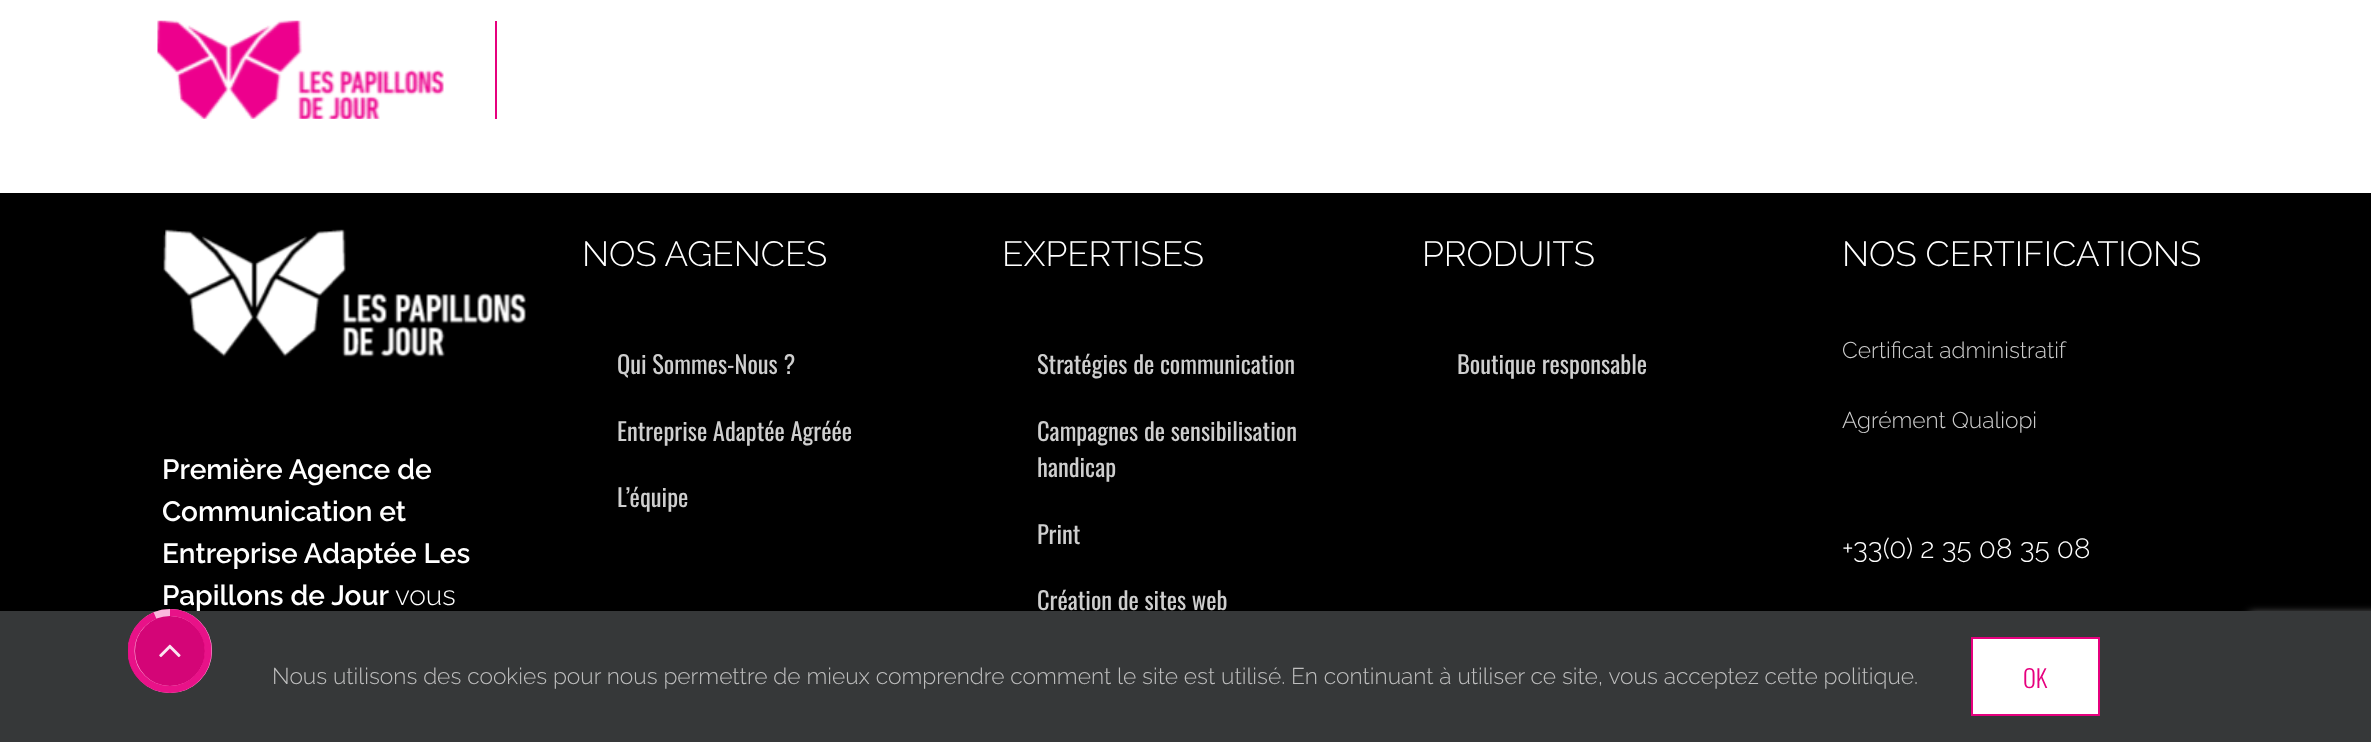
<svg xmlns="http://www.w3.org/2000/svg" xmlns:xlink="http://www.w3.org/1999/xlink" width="2371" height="742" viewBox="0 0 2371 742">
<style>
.cls-1{font:600 28px Raleway;fill:#ffffff}
.cls-2{font:300 28px Raleway;fill:#ffffff}
.cls-3{font:300 35px Raleway;fill:#ffffff}
.cls-4{font:24.5px Oswald;fill:#cecece}
.cls-5{font:300 22.75px Raleway;fill:#cecece}
.cls-6{font:300 22.75px Raleway;fill:#bfbfbf}
.cls-7{font:300 24.5px Oswald;fill:#e6007e}
</style>
<defs>
<clipPath id="clip1"><rect x="128" y="609" width="84" height="84"/></clipPath>
</defs>
<rect width="100%" height="100%" fill="#000000"/>
<rect fill="#ffffff" x="0" y="0" width="2371" height="193"/>
<rect fill="#e6007e" x="495" y="21" width="2" height="98"/>
<image xlink:href="image0.png" x="157" y="20" width="287" height="99"/>
<image xlink:href="image1.png" x="163" y="229" width="363" height="128"/>
<rect fill="#808080" filter="blur(4.5px)" x="2249" y="613" width="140" height="105" rx="4"/>
<rect fill="#363839" x="0" y="611" width="2371" height="131"/>
<rect fill="#ffffff" stroke="#e6007e" stroke-width="2" x="1972" y="638" width="127" height="77"/>
<text class="cls-1"><tspan x="162" y="479">Première Agence de</tspan><tspan x="162" y="521">Communication et</tspan><tspan x="162" y="563">Entreprise Adaptée Les</tspan><tspan x="162" y="605">Papillons de Jour</tspan></text>
<text class="cls-2" x="395" y="605">vous</text>
<text class="cls-3" x="582" y="266">NOS AGENCES</text>
<text class="cls-4" x="617" y="374">Qui Sommes-Nous ?</text>
<text class="cls-4" x="617" y="441">Entreprise Adaptée Agréée</text>
<text class="cls-4" x="617" y="507">L’équipe</text>
<text class="cls-3" x="1002" y="266">EXPERTISES</text>
<text class="cls-4" x="1037" y="374">Stratégies de communication</text>
<text class="cls-4"><tspan x="1037" y="441">Campagnes de sensibilisation</tspan><tspan x="1037" y="477">handicap</tspan></text>
<text class="cls-4" x="1037" y="544">Print</text>
<text class="cls-4" x="1037" y="610">Création de sites web</text>
<text class="cls-3" x="1422" y="266">PRODUITS</text>
<text class="cls-4" x="1457" y="374">Boutique responsable</text>
<text class="cls-3" x="1842" y="266">NOS CERTIFICATIONS</text>
<text class="cls-5" x="1842" y="358">Certificat administratif</text>
<text class="cls-5" x="1842" y="428">Agrément Qualiopi</text>
<text class="cls-2" x="1842" y="558">+33(0) 2 35 08 35 08</text>
<circle fill="#e6007e" fill-opacity="0.9" cx="170" cy="651" r="42"/>
<circle fill="none" stroke="#ffcce8" stroke-opacity="0.9" stroke-width="7" cx="170" cy="651" r="38.5"/>
<g clip-path="url(#clip1)">
<path fill="none" stroke="#e6007e" stroke-opacity="0.9" stroke-width="7" d="M170 612.5C191 612.5 208 629.5 208 651C208 672.5 191 689.5 170 689.5C148.5 689.5 131 672.5 131 651C131 635 141 621.5 155 615.5"/>
</g>
<image xlink:href="image2.png" x="159" y="644" width="22" height="14"/>
<text class="cls-6" x="272" y="684">Nous utilisons des cookies pour nous permettre de mieux comprendre comment le site est utilisé. En continuant à utiliser ce site, vous acceptez cette politique.</text>
<text class="cls-7" x="2023" y="688">OK</text>
</svg>
